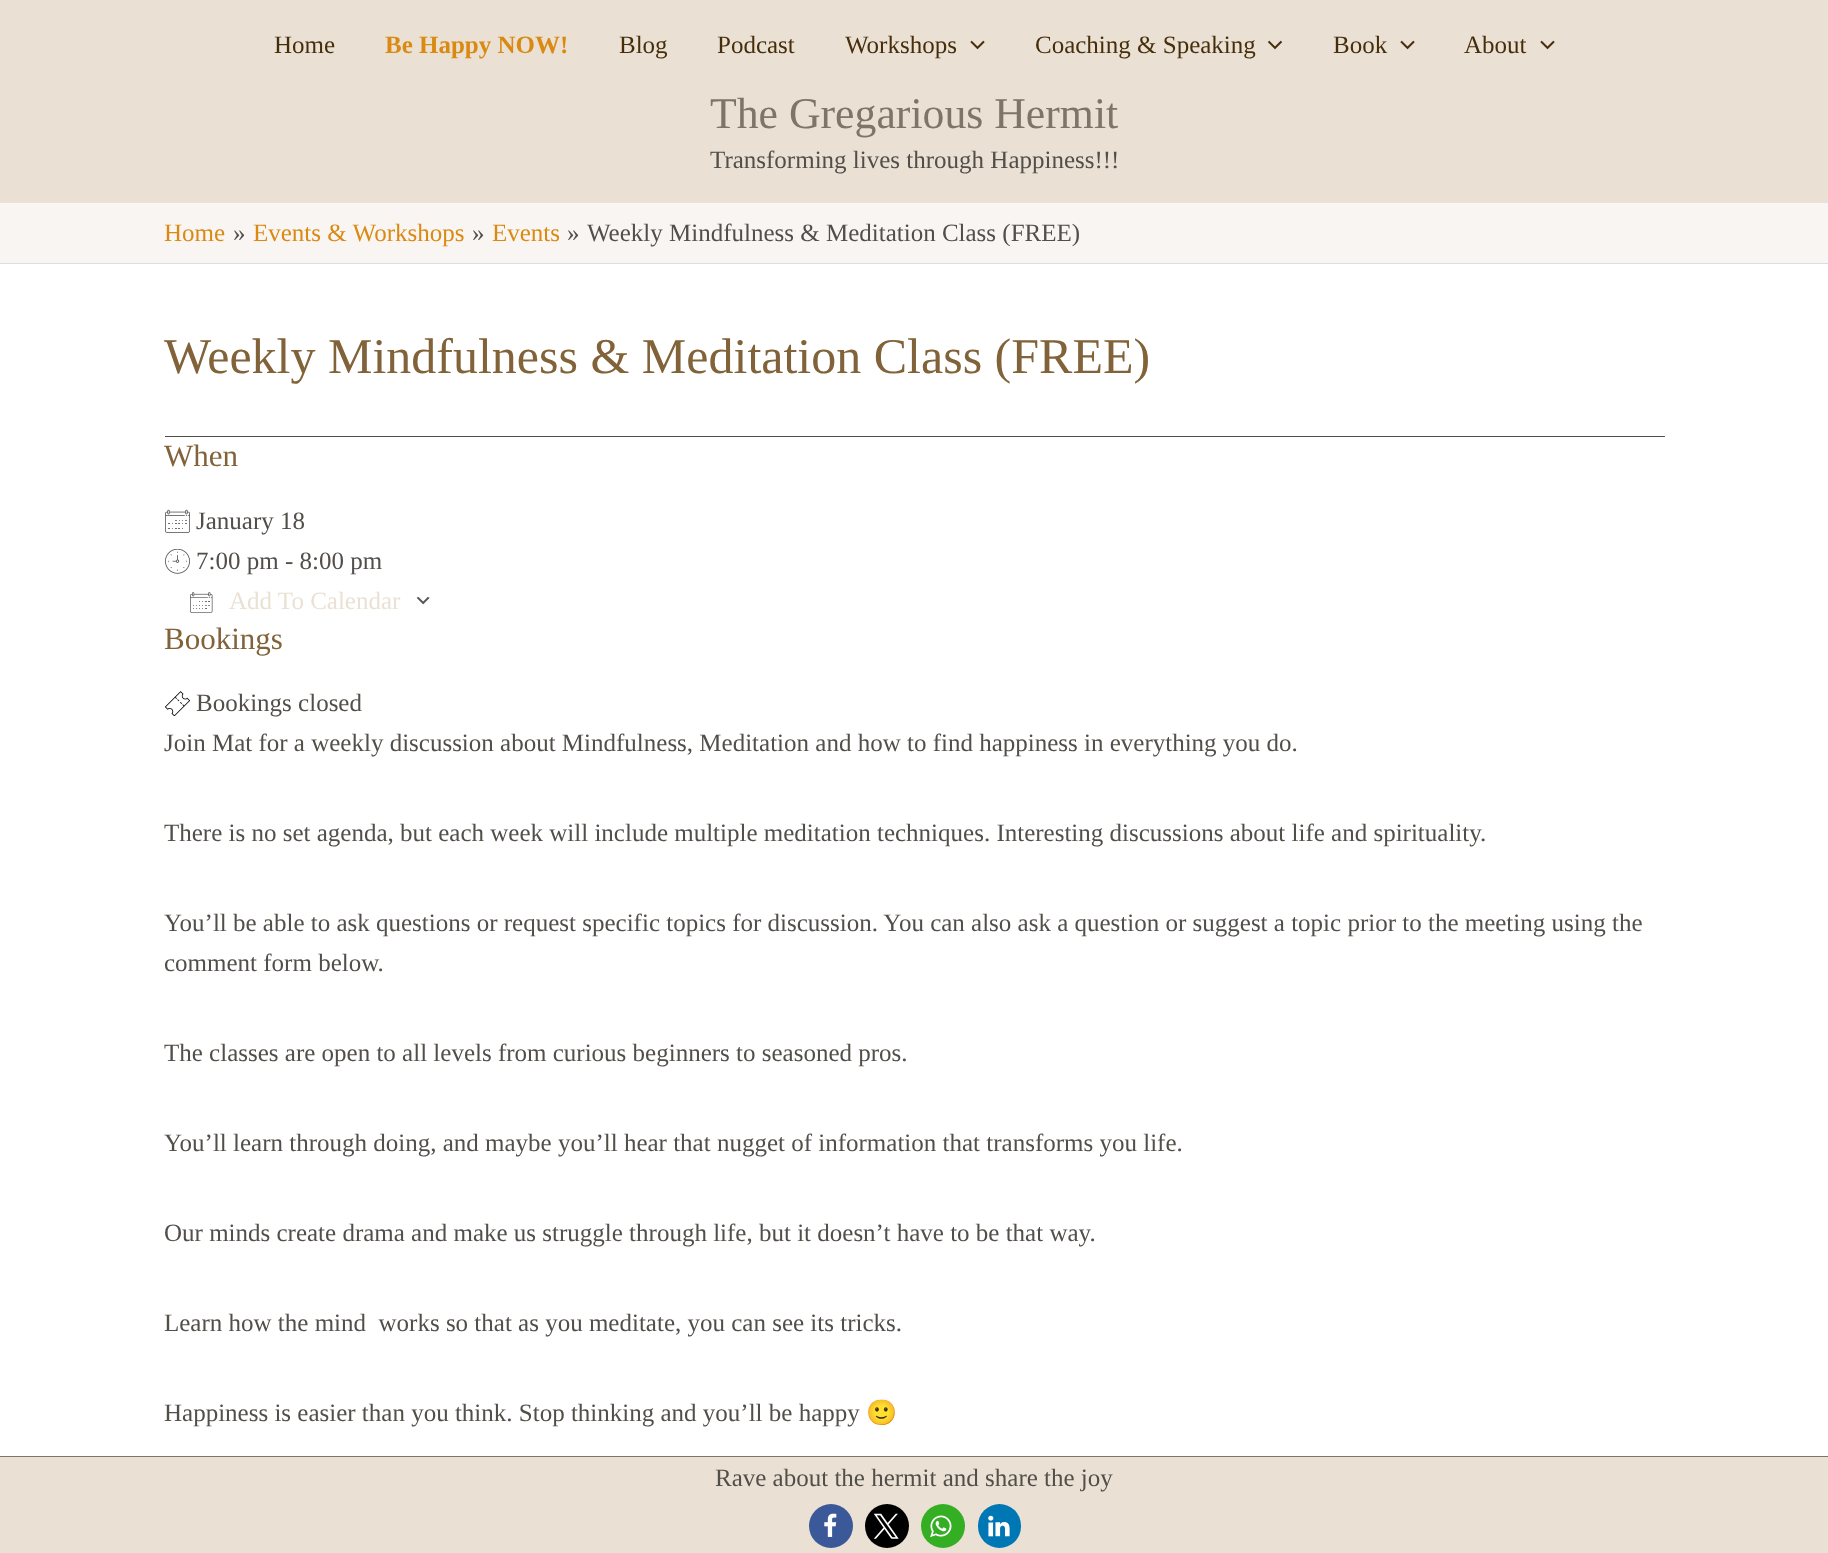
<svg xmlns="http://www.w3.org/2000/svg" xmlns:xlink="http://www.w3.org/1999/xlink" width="1828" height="1553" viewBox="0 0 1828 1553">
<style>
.cls-1{font:25px Liberation Serif;fill:#462e0b}
.cls-2{font:bold 25px Liberation Serif;fill:#da8a12}
.cls-3{font:43.75px Liberation Serif;fill:#7e7569}
.cls-4{font:25px Liberation Serif;fill:#524f4a}
.cls-5{font:25px Liberation Serif;fill:#da8a12}
.cls-6{font:50px Liberation Serif;fill:#816239}
.cls-7{font:31px Liberation Serif;fill:#816239}
.cls-8{font:25px Liberation Serif;fill:#eae1d4}
.cls-9{font:25px Noto Color Emoji;fill:#524f4a}
</style>
<rect width="100%" height="100%" fill="#ffffff"/>
<rect fill="#eae1d4" x="0" y="0" width="1828" height="203"/>
<image xlink:href="image0.png" x="970" y="40" width="15" height="10"/>
<image xlink:href="image1.png" x="1268" y="40" width="15" height="10"/>
<image xlink:href="image0.png" x="1400" y="40" width="15" height="10"/>
<image xlink:href="image0.png" x="1540" y="40" width="15" height="10"/>
<rect fill="#f8f5f3" x="0" y="203" width="1828" height="60"/>
<rect fill="#dddddd" x="0" y="263" width="1828" height="1"/>
<rect fill="#524f4a" x="165" y="436" width="1500" height="1"/>
<image xlink:href="image2.png" x="165" y="509" width="25" height="24"/>
<image xlink:href="image3.png" x="165" y="549" width="25" height="25"/>
<image xlink:href="image4.png" x="416" y="597" width="14" height="8"/>
<image xlink:href="image5.png" x="190" y="592" width="23" height="21"/>
<image xlink:href="image6.png" x="165" y="691" width="25" height="25"/>
<rect fill="#eae1d4" x="0" y="1457" width="1828" height="96"/>
<rect fill="#7e7569" x="0" y="1456" width="1828" height="1"/>
<circle fill="#3b5998" cx="831" cy="1526" r="22"/>
<image xlink:href="image7.png" x="824" y="1513" width="13" height="24"/>
<circle fill="#000000" cx="887" cy="1526" r="22"/>
<image xlink:href="image8.png" x="873" y="1513" width="26" height="26"/>
<circle fill="#34af23" cx="943" cy="1526" r="22"/>
<image xlink:href="image9.png" x="930" y="1515" width="22" height="22"/>
<rect fill="#0077b5" x="978" y="1504" width="43" height="44" rx="21.5"/>
<image xlink:href="image10.png" x="988" y="1515" width="22" height="22"/>
<text class="cls-1" x="274" y="53">Home</text>
<text class="cls-2" x="385" y="53">Be Happy NOW!</text>
<text class="cls-1" x="619" y="53">Blog</text>
<text class="cls-1" x="717" y="53">Podcast</text>
<text class="cls-1" x="845" y="53">Workshops</text>
<text class="cls-1" x="1035" y="53">Coaching &amp; Speaking</text>
<text class="cls-1" x="1333" y="53">Book</text>
<text class="cls-1" x="1464" y="53">About</text>
<text class="cls-3" x="710" y="128">The Gregarious Hermit</text>
<text class="cls-4" x="710" y="168">Transforming lives through Happiness!!!</text>
<text class="cls-5" x="164" y="241">Home</text>
<text class="cls-4" x="233" y="241">»</text>
<text class="cls-5" x="253" y="241">Events &amp; Workshops</text>
<text class="cls-4" x="472" y="241">»</text>
<text class="cls-5" x="492" y="241">Events</text>
<text class="cls-4" x="567" y="241">»</text>
<text class="cls-4" x="587" y="241">Weekly Mindfulness &amp; Meditation Class (FREE)</text>
<text class="cls-6" x="164" y="373">Weekly Mindfulness &amp; Meditation Class (FREE)</text>
<text class="cls-7" x="164" y="466">When</text>
<text class="cls-4"><tspan x="196" y="529">January 18</tspan><tspan x="196" y="569">7:00 pm - 8:00 pm</tspan></text>
<text class="cls-8" x="229" y="609">Add To Calendar</text>
<text class="cls-7" x="164" y="649">Bookings</text>
<text class="cls-4" x="196" y="711">Bookings closed</text>
<text class="cls-4" x="164" y="751">Join Mat for a weekly discussion about Mindfulness, Meditation and how to find happiness in everything you do.</text>
<text class="cls-4" x="164" y="841">There is no set agenda, but each week will include multiple meditation techniques. Interesting discussions about life and spirituality.</text>
<text class="cls-4"><tspan x="164" y="931">You’ll be able to ask questions or request specific topics for discussion. You can also ask a question or suggest a topic prior to the meeting using the</tspan><tspan x="164" y="971">comment form below.</tspan></text>
<text class="cls-4" x="164" y="1061">The classes are open to all levels from curious beginners to seasoned pros.</text>
<text class="cls-4" x="164" y="1151">You’ll learn through doing, and maybe you’ll hear that nugget of information that transforms you life.</text>
<text class="cls-4" x="164" y="1241">Our minds create drama and make us struggle through life, but it doesn’t have to be that way.</text>
<text class="cls-4" xml:space="preserve" x="164" y="1331">Learn how the mind  works so that as you meditate, you can see its tricks.</text>
<text class="cls-4" x="164" y="1421">Happiness is easier than you think. Stop thinking and you’ll be happy</text>
<text class="cls-9" x="866" y="1421">🙂</text>
<text class="cls-4" x="715" y="1486">Rave about the hermit and share the joy</text>
</svg>
